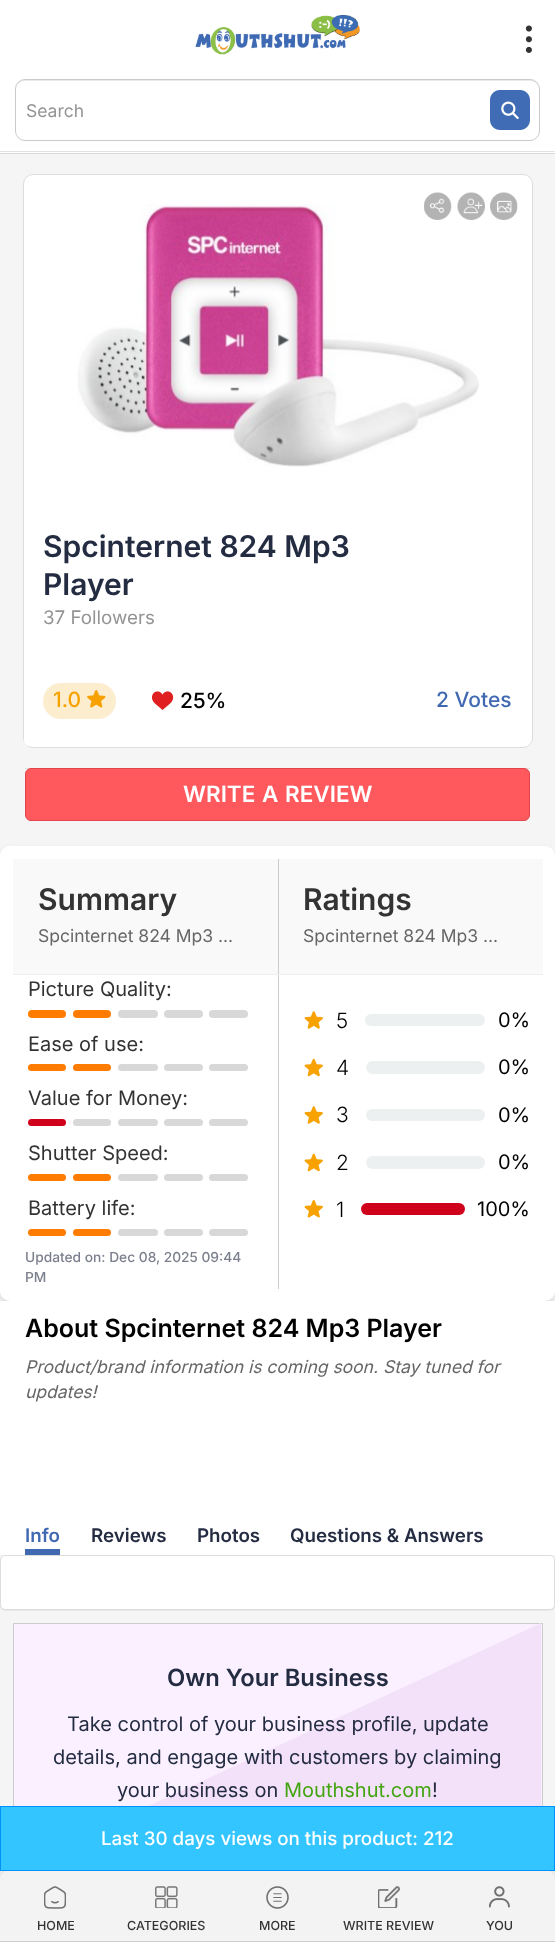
<svg xmlns="http://www.w3.org/2000/svg" xmlns:xlink="http://www.w3.org/1999/xlink" width="555" height="1942" viewBox="0 0 555 1942">
<style>
.cls-1{font:17.5px Inter;fill:#949494}
.cls-2{font:600 30px Inter;fill:#242c42}
.cls-3{font:18.75px Inter;fill:#949494}
.cls-4{font:500 21px Inter;fill:#f7a200}
.cls-5{font:500 21px Inter;fill:#000000}
.cls-6{font:500 21px Inter;fill:#4169b2}
.cls-7{font:600 22.5px Inter;fill:#ffffff}
.cls-8{font:600 30px Inter;fill:#333333}
.cls-9{font:17.5px Inter;fill:#666666}
.cls-10{font:20px Inter;fill:#333333}
.cls-11{font:500 13.75px Inter;fill:#7c808e}
.cls-12{font:300 21px Inter;fill:#000000}
.cls-13{font:20px Inter;fill:#000000}
.cls-14{font:600 25px Inter;fill:#000000}
.cls-15{font:italic 17.5px Inter;fill:#666666}
.cls-16{font:600 18.75px Inter;fill:#4169b2}
.cls-17{font:600 18.75px Inter;fill:#242c42}
.cls-18{font:600 23.75px Inter;fill:#242c42}
.cls-19{font:20px Inter;fill:#242c42}
.cls-20{font:20px Inter;fill:#44a512}
.cls-21{font:500 12.5px Inter;fill:#333333}
.cls-22{font:500 18.75px Inter;fill:#ffffff}
</style>
<rect width="100%" height="100%" fill="#f5f5f5"/>
<rect fill="#ffffff" x="0" y="0" width="555" height="153"/>
<rect fill="#d9d9d9" x="0" y="153" width="555" height="1"/>
<image xlink:href="image0.png" x="195" y="15" width="165" height="40"/>
<image xlink:href="image1.png" x="525" y="25" width="7" height="28"/>
<rect fill="#e1e1e1" x="0" y="151" width="555" height="1"/>
<path fill="#ebebeb" d="M25 81H530C535 81 539 85 539 90C539 85 536 80 530 80H25C19 80 16 85 16 90C16 85 20 81 25 81Z"/>
<rect fill="none" stroke="#cacaca" x="15.5" y="79.5" width="524" height="61" rx="9.5"/>
<image xlink:href="image2.png" x="490" y="90" width="40" height="40"/>
<rect fill="#ffffff" stroke="#dddddd" x="23.5" y="174.5" width="509" height="573" rx="9.5"/>
<image xlink:href="image6.png" x="77" y="204" width="402" height="263"/>
<image xlink:href="image3.png" x="424" y="192" width="28" height="28"/>
<image xlink:href="image4.png" x="457" y="192" width="28" height="28"/>
<image xlink:href="image5.png" x="490" y="192" width="28" height="28"/>
<path fill="#ffffff" d="M24 491H531V740C531 743.5 528.5 746 525 746H30C26.5 746 24 743.5 24 740Z"/>
<rect fill="#fdedcf" x="43" y="683" width="73" height="36" rx="18"/>
<image xlink:href="image7.png" x="87" y="690" width="19" height="18"/>
<image xlink:href="image8.png" x="151" y="691" width="23" height="19"/>
<rect fill="#e0e1e3" x="25" y="768" width="505" height="1"/>
<rect fill="#ff595e" stroke="#e14449" x="25.5" y="768.5" width="504" height="52" rx="5.5"/>
<rect fill="#000000" fill-opacity="0.1" filter="blur(5px)" x="0" y="851" width="555" height="455" rx="10"/>
<rect fill="#ffffff" x="0" y="846" width="555" height="455" rx="10"/>
<rect fill="#f9f9f9" x="13" y="859" width="530" height="115"/>
<rect fill="#eeeeee" x="13" y="974" width="530" height="1"/>
<rect fill="#cccccc" x="278" y="859" width="1" height="115"/>
<rect fill="#ff7c00" x="28" y="1010" width="38" height="8" rx="4"/>
<rect fill="#ff7c00" x="73" y="1010" width="38" height="8" rx="4"/>
<rect fill="#d8d8d8" x="118" y="1010" width="40" height="8" rx="4"/>
<rect fill="#d8d8d8" x="164" y="1010" width="39" height="8" rx="4"/>
<rect fill="#d8d8d8" x="209" y="1010" width="39" height="8" rx="4"/>
<rect fill="#ff7c00" x="28" y="1064" width="38" height="7" rx="3.5"/>
<rect fill="#ff7c00" x="73" y="1064" width="38" height="7" rx="3.5"/>
<rect fill="#d8d8d8" x="118" y="1064" width="40" height="7" rx="3.5"/>
<rect fill="#d8d8d8" x="164" y="1064" width="39" height="7" rx="3.5"/>
<rect fill="#d8d8d8" x="209" y="1064" width="39" height="7" rx="3.5"/>
<rect fill="#d0021b" x="28" y="1119" width="38" height="7" rx="3.5"/>
<rect fill="#d8d8d8" x="73" y="1119" width="38" height="7" rx="3.5"/>
<rect fill="#d8d8d8" x="118" y="1119" width="40" height="7" rx="3.5"/>
<rect fill="#d8d8d8" x="164" y="1119" width="39" height="7" rx="3.5"/>
<rect fill="#d8d8d8" x="209" y="1119" width="39" height="7" rx="3.5"/>
<rect fill="#ff7c00" x="28" y="1174" width="38" height="7" rx="3.5"/>
<rect fill="#ff7c00" x="73" y="1174" width="38" height="7" rx="3.5"/>
<rect fill="#d8d8d8" x="118" y="1174" width="40" height="7" rx="3.5"/>
<rect fill="#d8d8d8" x="164" y="1174" width="39" height="7" rx="3.5"/>
<rect fill="#d8d8d8" x="209" y="1174" width="39" height="7" rx="3.5"/>
<rect fill="#ff7c00" x="28" y="1229" width="38" height="7" rx="3.5"/>
<rect fill="#ff7c00" x="73" y="1229" width="38" height="7" rx="3.5"/>
<rect fill="#d8d8d8" x="118" y="1229" width="40" height="7" rx="3.5"/>
<rect fill="#d8d8d8" x="164" y="1229" width="39" height="7" rx="3.5"/>
<rect fill="#d8d8d8" x="209" y="1229" width="39" height="7" rx="3.5"/>
<rect fill="#cccccc" x="278" y="975" width="1" height="314"/>
<image xlink:href="image9.png" x="304" y="1011" width="19" height="18"/>
<rect fill="#ecf0f1" x="365" y="1014" width="120" height="12" rx="6"/>
<image xlink:href="image10.png" x="304" y="1058" width="19" height="19"/>
<rect fill="#ecf0f1" x="366" y="1061" width="119" height="13" rx="6.5"/>
<image xlink:href="image9.png" x="304" y="1106" width="19" height="18"/>
<rect fill="#ecf0f1" x="366" y="1109" width="119" height="12" rx="6"/>
<image xlink:href="image10.png" x="304" y="1153" width="19" height="19"/>
<rect fill="#ecf0f1" x="366" y="1156" width="119" height="13" rx="6.5"/>
<image xlink:href="image11.png" x="304" y="1200" width="19" height="18"/>
<rect fill="#d0021b" x="361" y="1203" width="104" height="12" rx="6"/>
<rect fill="#ffffff" x="0" y="1301" width="555" height="254"/>
<rect fill="#4169b2" x="25" y="1549" width="35" height="6"/>
<rect fill="#000000" fill-opacity="0.05" filter="blur(0.5px)" x="0" y="1556" width="555" height="55" rx="5"/>
<rect fill="#ffffff" stroke="#dddddd" x="0.5" y="1555.5" width="554" height="54" rx="4.5"/>
<rect fill="#faf0ff" x="14" y="1624" width="528" height="182"/>
<rect fill="none" stroke="#cccccc" x="13.5" y="1623.5" width="529" height="311"/>
<path fill="#f2e1f8" d="M14 1869L541 1623V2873L14 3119Z"/>
<rect fill="#000000" fill-opacity="0.1" filter="blur(6px)" x="0" y="1865" width="555" height="73" rx="10"/>
<path fill="#f3f3f3" d="M10 1870H545C550.5 1870 555 1874.5 555 1880V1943H0V1880C0 1874.5 4.5 1870 10 1870Z"/>
<rect fill="#cecece" x="0" y="1941" width="555" height="1"/>
<image xlink:href="image12.png" x="44" y="1886" width="22" height="23"/>
<image xlink:href="image13.png" x="155" y="1886" width="23" height="22"/>
<image xlink:href="image14.png" x="266" y="1886" width="23" height="23"/>
<image xlink:href="image15.png" x="378" y="1886" width="22" height="22"/>
<image xlink:href="image16.png" x="489" y="1886" width="21" height="22"/>
<rect fill="#32c5ff" stroke="#0091ff" x="0.5" y="1806.5" width="554" height="64"/>
<text class="cls-1" x="26" y="117">Search</text>
<text class="cls-2"><tspan x="43" y="557">Spcinternet 824 Mp3</tspan><tspan x="43" y="595">Player</tspan></text>
<text class="cls-3" x="43" y="624">37 Followers</text>
<text class="cls-4" x="53" y="707">1.0</text>
<text class="cls-5" x="180" y="708">25%</text>
<text class="cls-6" x="436" y="707">2 Votes</text>
<text class="cls-7" x="183" y="802" word-spacing="1">WRITE A REVIEW</text>
<text class="cls-8" x="38" y="910">Summary</text>
<text class="cls-9" x="38" y="942">Spcinternet 824 Mp3 ...</text>
<text class="cls-8" x="303" y="910">Ratings</text>
<text class="cls-9" x="303" y="942">Spcinternet 824 Mp3 ...</text>
<text class="cls-10" x="28" y="996">Picture Quality:</text>
<text class="cls-10" x="28" y="1051">Ease of use:</text>
<text class="cls-10" x="28" y="1105">Value for Money:</text>
<text class="cls-10" x="28" y="1160">Shutter Speed:</text>
<text class="cls-10" x="28" y="1215">Battery life:</text>
<text class="cls-11"><tspan x="25" y="1262">Updated on: Dec 08, 2025 09:44</tspan><tspan x="25" y="1282">PM</tspan></text>
<text class="cls-12" x="336" y="1028">5</text>
<text class="cls-13" x="498" y="1027">0%</text>
<text class="cls-12" x="336" y="1075">4</text>
<text class="cls-13" x="498" y="1074">0%</text>
<text class="cls-12" x="336" y="1122">3</text>
<text class="cls-13" x="498" y="1122">0%</text>
<text class="cls-12" x="336" y="1170">2</text>
<text class="cls-13" x="498" y="1169">0%</text>
<text class="cls-12" x="336" y="1217">1</text>
<text class="cls-13" x="477" y="1216">100%</text>
<text class="cls-14" x="25" y="1337">About Spcinternet 824 Mp3 Player</text>
<text class="cls-15"><tspan x="25" y="1373">Product/brand information is coming soon. Stay tuned for</tspan><tspan x="25" y="1398">updates!</tspan></text>
<text class="cls-16" x="25" y="1542">Info</text>
<text class="cls-17" x="91" y="1542">Reviews</text>
<text class="cls-17" x="197" y="1542">Photos</text>
<text class="cls-17" x="290" y="1542">Questions &amp; Answers</text>
<text class="cls-18" x="167" y="1686">Own Your Business</text>
<text class="cls-19" x="67" y="1731">Take control of your business profile, update</text>
<text class="cls-19" x="53" y="1764">details, and engage with customers by claiming</text>
<text class="cls-19" x="117" y="1797">your business on</text>
<text class="cls-20" x="284" y="1797">Mouthshut.com</text>
<text class="cls-19" x="432" y="1797">!</text>
<text class="cls-21" x="37" y="1930">HOME</text>
<text class="cls-21" x="127" y="1930">CATEGORIES</text>
<text class="cls-21" x="259" y="1930">MORE</text>
<text class="cls-21" x="343" y="1930">WRITE REVIEW</text>
<text class="cls-21" x="486" y="1930">YOU</text>
<text class="cls-22" x="101" y="1845">Last 30 days views on this product: 212</text>
</svg>
